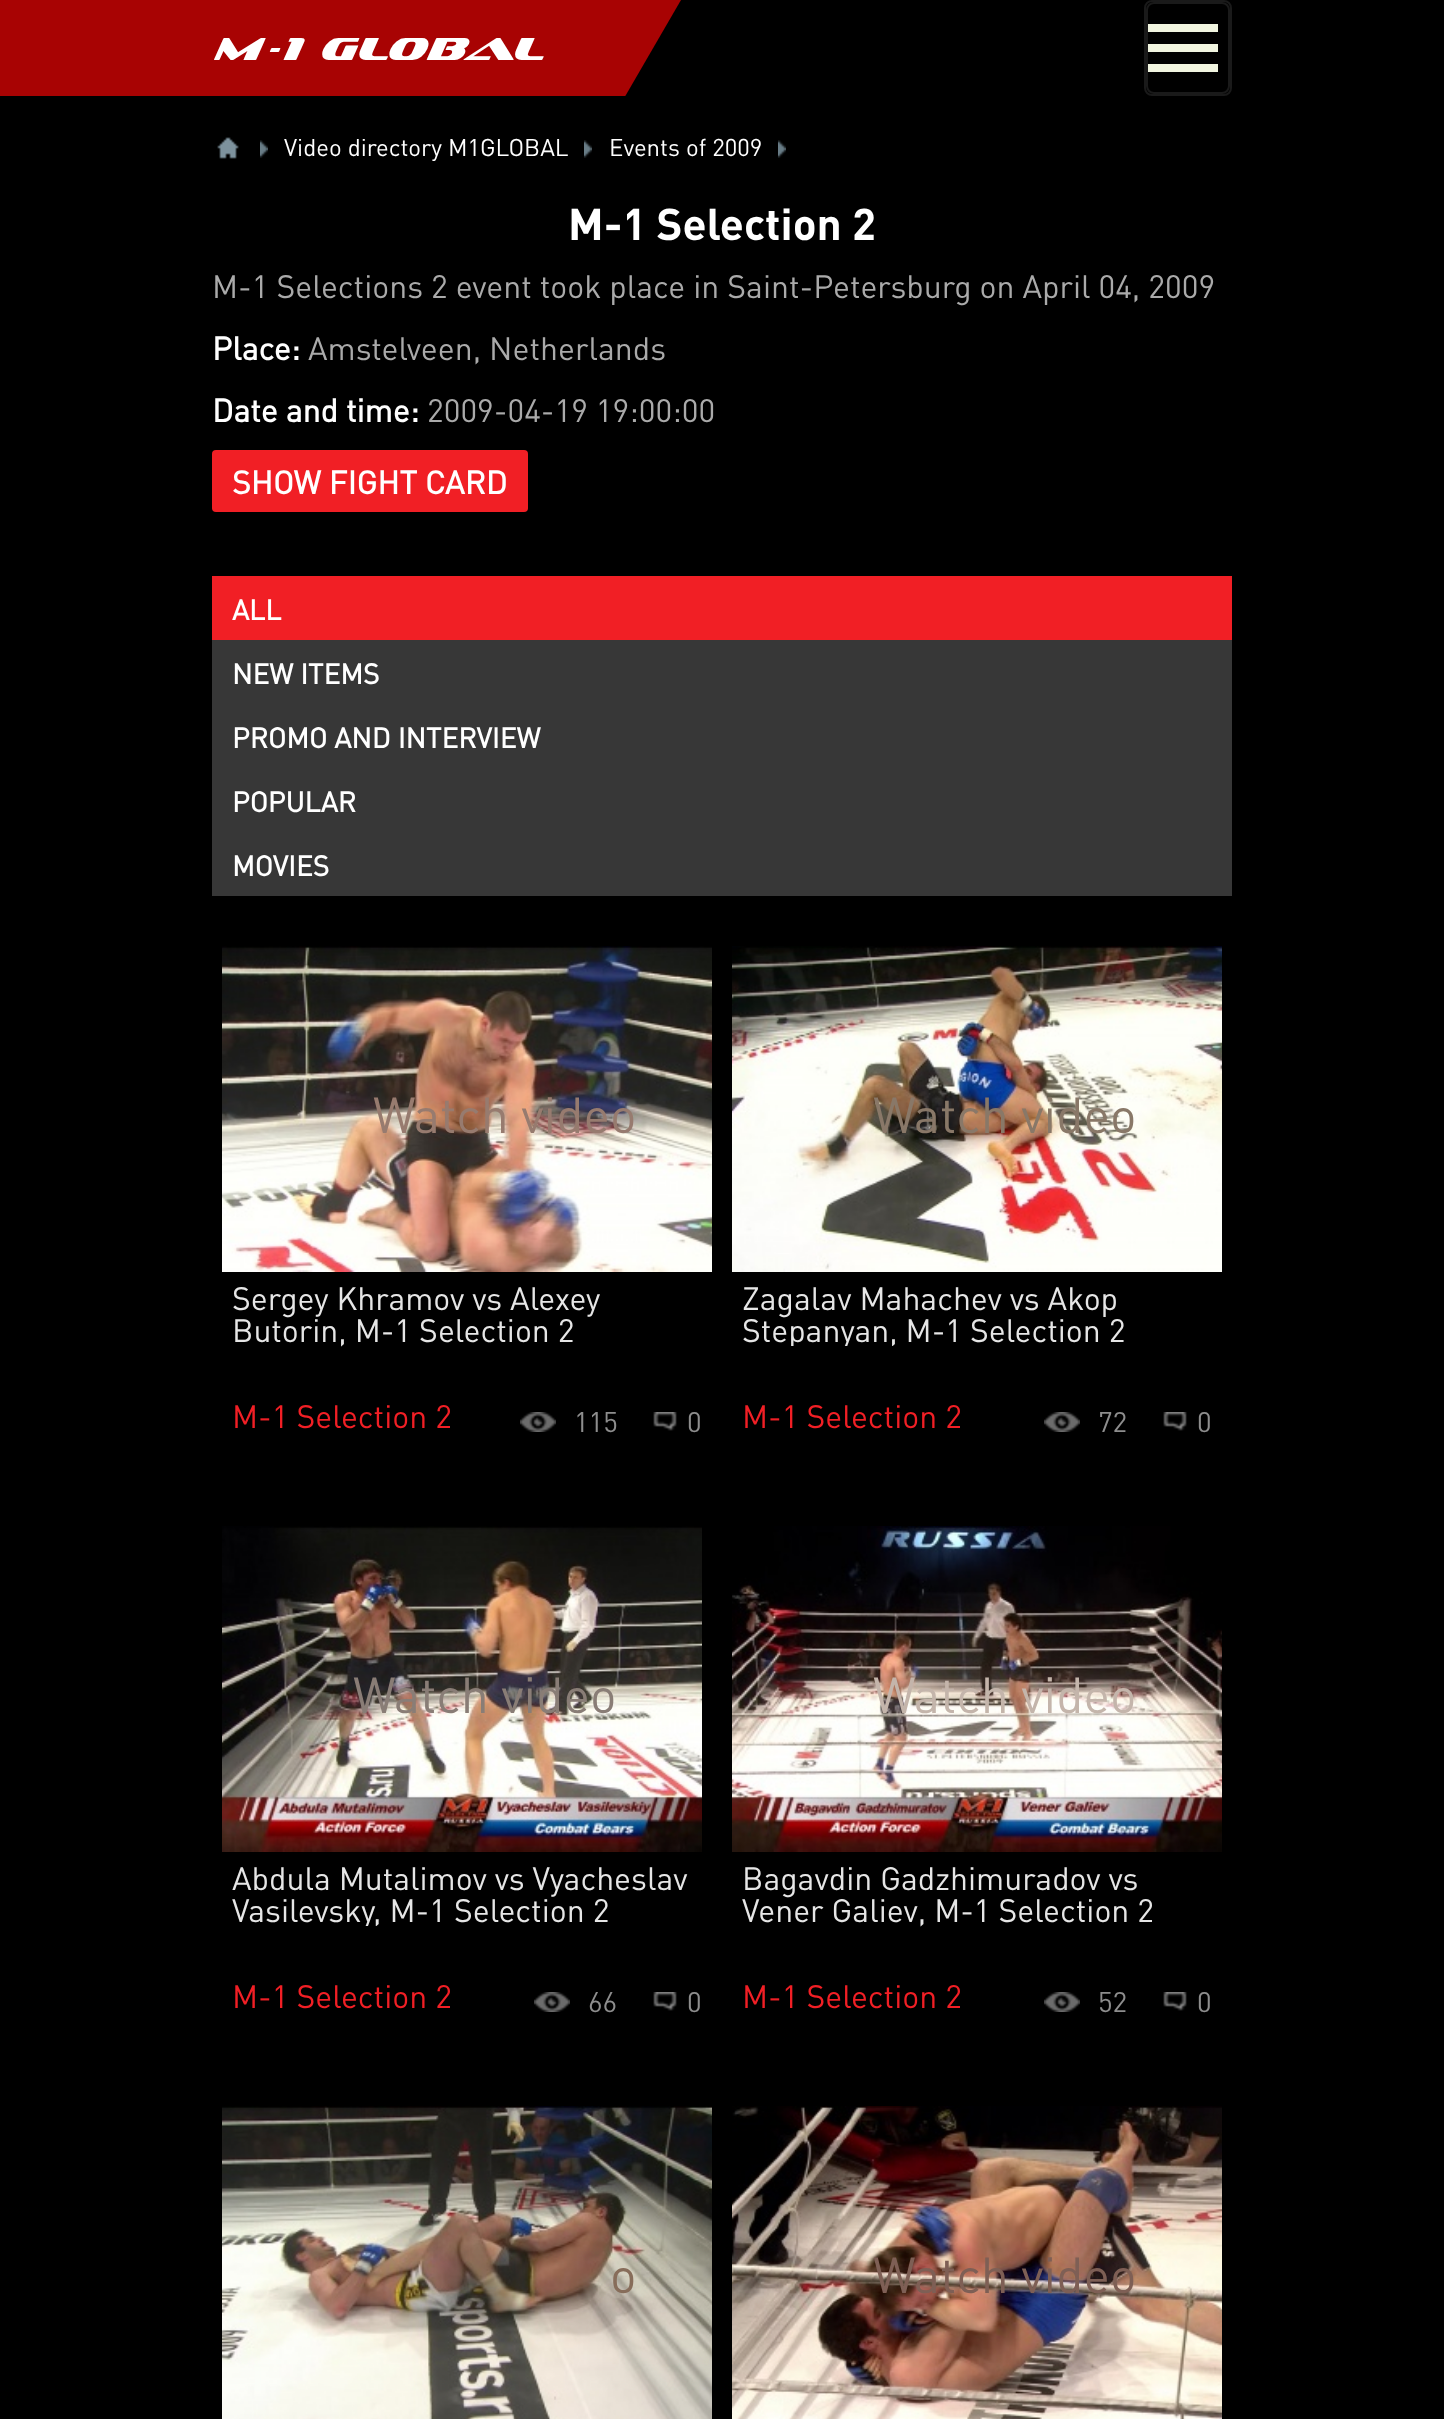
<svg xmlns="http://www.w3.org/2000/svg" xmlns:xlink="http://www.w3.org/1999/xlink" width="1444" height="2419" viewBox="0 0 1444 2419">
<style>
.cls-1{font:italic 32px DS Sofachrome;fill:#ffffff}
.cls-2{font:24px DIN;fill:#ffffff}
.cls-3{font:bold 44px 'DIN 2';fill:#ffffff}
.cls-4{font:32px DIN;fill:#aaaaaa}
.cls-5{font:bold 32px DIN;fill:#ffffff}
.cls-6{font:bold 28px DIN;fill:#ffffff}
.cls-7{font:50px DIN;fill:#977b6f}
.cls-8{font:32px DIN;fill:#e6e6e6}
.cls-9{font:32px DIN;fill:#f11f25}
.cls-10{font:28px DIN;fill:#8d8d8d}
.cls-11{font:50px DIN;fill:#897868}
.cls-12{font:50px DIN;fill:#897d76}
.cls-13{font:50px DIN;fill:#c4b5ab}
.cls-14{font:50px DIN;fill:#876d5a}
.cls-15{font:50px DIN;fill:#7e5f55}
</style>
<defs>
<clipPath id="clip1"><rect x="742" y="1282" width="470" height="64"/></clipPath>
<clipPath id="clip2"><rect x="232" y="1862" width="470" height="64"/></clipPath>
</defs>
<rect width="100%" height="100%" fill="#000000"/>
<path fill="#a80303" d="M-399 0H681L623 100H-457Z"/>
<rect fill="none" stroke="#1a1a1a" stroke-width="2" x="1145" y="1" width="86" height="94" rx="7"/>
<rect fill="none" stroke="#1a1a1a" stroke-width="2" x="1147" y="3" width="82" height="90" rx="7"/>
<rect fill="#f1f5e0" x="1148" y="44" width="70" height="8"/>
<rect fill="#f1f5e0" x="1148" y="24" width="70" height="8"/>
<rect fill="#f1f5e0" x="1148" y="64" width="70" height="8"/>
<rect fill="#000000" x="0" y="96" width="626" height="4"/>
<image xlink:href="image0.png" x="217" y="137" width="22" height="22"/>
<image xlink:href="image1.png" x="260" y="140" width="8" height="18"/>
<image xlink:href="image1.png" x="584" y="140" width="8" height="18"/>
<image xlink:href="image1.png" x="778" y="140" width="8" height="18"/>
<rect fill="#f11f25" x="212" y="450" width="316" height="62" rx="4"/>
<rect fill="#373737" x="212" y="640" width="1020" height="256"/>
<rect fill="#f11f25" x="212" y="576" width="1020" height="64"/>
<image xlink:href="image2.png" x="222" y="946" width="490" height="326"/>
<image xlink:href="image3.png" x="520" y="1412" width="36" height="20"/>
<image xlink:href="image4.png" x="653" y="1412" width="24" height="19"/>
<image xlink:href="image5.png" x="732" y="946" width="490" height="326"/>
<image xlink:href="image3.png" x="1044" y="1412" width="36" height="20"/>
<image xlink:href="image4.png" x="1163" y="1412" width="24" height="19"/>
<image xlink:href="image6.png" x="222" y="1526" width="480" height="326"/>
<image xlink:href="image3.png" x="534" y="1992" width="36" height="20"/>
<image xlink:href="image4.png" x="653" y="1992" width="24" height="19"/>
<image xlink:href="image7.png" x="732" y="1526" width="490" height="326"/>
<image xlink:href="image3.png" x="1044" y="1992" width="36" height="20"/>
<image xlink:href="image4.png" x="1163" y="1992" width="24" height="19"/>
<image xlink:href="image8.png" x="222" y="2106" width="490" height="313"/>
<image xlink:href="image9.png" x="732" y="2106" width="490" height="313"/>
<text class="cls-1" x="212" y="60">M-1 GLOBAL</text>
<text class="cls-2" x="284" y="156">Video directory M1GLOBAL</text>
<text class="cls-2" x="609" y="156">Events of 2009</text>
<text class="cls-3" x="568" y="240">M-1 Selection 2</text>
<text class="cls-4" x="212" y="298">M-1 Selections 2 event took place in Saint-Petersburg on April 04, 2009</text>
<text class="cls-5" x="212" y="360">Place:</text>
<text class="cls-4" x="308" y="360">Amstelveen, Netherlands</text>
<text class="cls-5" x="212" y="422">Date and time:</text>
<text class="cls-4" x="427" y="422">2009-04-19 19:00:00</text>
<text class="cls-5" x="232" y="494">SHOW FIGHT CARD</text>
<text class="cls-6" x="232" y="620">ALL</text>
<text class="cls-6" x="232" y="684">NEW ITEMS</text>
<text class="cls-6" x="232" y="748">PROMO AND INTERVIEW</text>
<text class="cls-6" x="232" y="812">POPULAR</text>
<text class="cls-6" x="232" y="876">MOVIES</text>
<text class="cls-7" x="373" y="1133">Watch video</text>
<text class="cls-8"><tspan x="232" y="1310">Sergey Khramov vs Alexey</tspan><tspan x="232" y="1342">Butorin, M-1 Selection 2</tspan></text>
<text class="cls-9" x="232" y="1428">M-1 Selection 2</text>
<text class="cls-10" x="574" y="1432">115</text>
<text class="cls-10" x="687" y="1432">0</text>
<text class="cls-11" x="873" y="1133">Watch video</text>
<text class="cls-8" x="742" y="1310">Zagalav Mahachev vs Akop</text>
<g clip-path="url(#clip1)">
<text class="cls-8" x="742" y="1342">Stepanyan, M-1 Selection 2</text>
</g>
<text class="cls-9" x="742" y="1428">M-1 Selection 2</text>
<text class="cls-10" x="1098" y="1432">72</text>
<text class="cls-10" x="1197" y="1432">0</text>
<text class="cls-12" x="353" y="1713">Watch video</text>
<text class="cls-8" x="232" y="1890">Abdula Mutalimov vs Vyacheslav</text>
<g clip-path="url(#clip2)">
<text class="cls-8" x="232" y="1922">Vasilevsky, M-1 Selection 2</text>
</g>
<text class="cls-9" x="232" y="2008">M-1 Selection 2</text>
<text class="cls-10" x="588" y="2012">66</text>
<text class="cls-10" x="687" y="2012">0</text>
<text class="cls-13" x="873" y="1713">Watch video</text>
<text class="cls-8"><tspan x="742" y="1890">Bagavdin Gadzhimuradov vs</tspan><tspan x="742" y="1922">Vener Galiev, M-1 Selection 2</tspan></text>
<text class="cls-9" x="742" y="2008">M-1 Selection 2</text>
<text class="cls-10" x="1098" y="2012">52</text>
<text class="cls-10" x="1197" y="2012">0</text>
<text class="cls-14" x="610" y="2293">o</text>
<text class="cls-15" x="873" y="2293">Watch video</text>
</svg>
